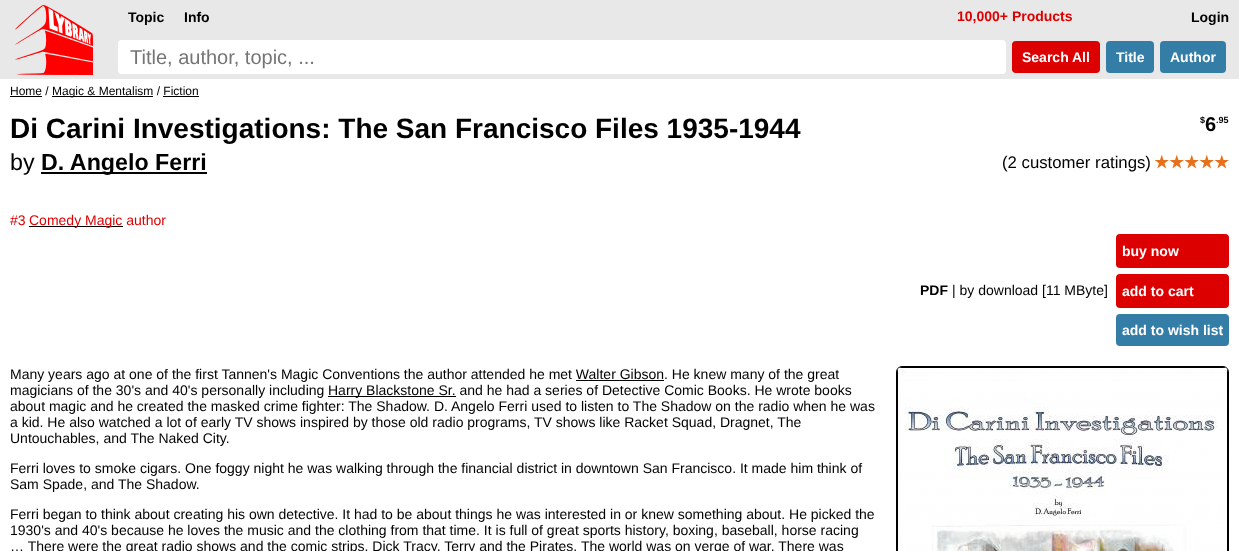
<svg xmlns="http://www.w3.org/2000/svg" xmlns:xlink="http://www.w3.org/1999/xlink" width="1239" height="551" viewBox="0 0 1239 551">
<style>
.cls-1{font:bold 14px Liberation Sans;fill:#000000}
.cls-2{font:bold 14px Liberation Sans;fill:#dd0000}
.cls-3{font:20px Liberation Sans;fill:#757575}
.cls-4{font:bold 14px Liberation Sans;fill:#ffffff}
.cls-5{font:12px Liberation Sans;fill:#000000}
.cls-6{font:bold 28px Liberation Sans;fill:#000000}
.cls-7{font:23.25px Liberation Sans;fill:#000000}
.cls-8{font:bold 23.25px Liberation Sans;fill:#000000}
.cls-9{font:14px Liberation Sans;fill:#dd0000}
.cls-10{font:bold 9px Liberation Sans;fill:#000000}
.cls-11{font:bold 20px Liberation Sans;fill:#000000}
.cls-12{font:16.75px Liberation Sans;fill:#000000}
.cls-13{font:bold 16.75px DejaVu Sans;fill:#e7711b}
.cls-14{font:14px Liberation Sans;fill:#000000}
</style>
<rect width="100%" height="100%" fill="#e8e8e8"/>
<image xlink:href="image0.png" x="15" y="5" width="78" height="70"/>
<rect fill="#ffffff" x="118" y="40" width="888" height="34" rx="4"/>
<rect fill="#dd0000" x="1012" y="41" width="88" height="32" rx="4"/>
<rect fill="#337da6" x="1106" y="41" width="48" height="32" rx="4"/>
<rect fill="#337da6" x="1160" y="41" width="66" height="32" rx="4"/>
<rect fill="#ffffff" x="0" y="79" width="1239" height="472"/>
<rect fill="#000000" x="10" y="96" width="32" height="1"/>
<rect fill="#000000" x="52" y="96" width="101" height="1"/>
<rect fill="#000000" x="163" y="96" width="36" height="1"/>
<rect fill="#000000" x="41" y="172" width="166" height="2"/>
<rect fill="#000000" x="29" y="226" width="94" height="1"/>
<rect fill="#dd0000" x="1116" y="234" width="113" height="34" rx="4"/>
<rect fill="#dd0000" x="1116" y="274" width="113" height="34" rx="4"/>
<rect fill="#337da6" x="1116" y="314" width="113" height="32" rx="4"/>
<rect fill="#000000" x="576" y="380" width="88" height="1"/>
<rect fill="#000000" x="328" y="396" width="128" height="1"/>
<rect fill="none" stroke="#000000" x="896.5" y="366.5" width="332" height="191" rx="5.5"/>
<image xlink:href="image1.png" x="897" y="367" width="331" height="184"/>
<text class="cls-1" x="128" y="22">Topic</text>
<text class="cls-1" x="184" y="22">Info</text>
<text class="cls-2" x="957" y="21">10,000+ Products</text>
<text class="cls-1" x="1191" y="22">Login</text>
<text class="cls-3" x="130" y="64">Title, author, topic, ...</text>
<text class="cls-4" x="1022" y="62">Search</text>
<text class="cls-4" x="1072" y="62">All</text>
<text class="cls-4" x="1116" y="62">Title</text>
<text class="cls-4" x="1170" y="62">Author</text>
<text class="cls-5" x="10" y="95">Home /</text>
<text class="cls-5" x="52" y="95">Magic &amp; Mentalism / Fiction</text>
<text class="cls-6" x="10" y="138">Di Carini Investigations: The San Francisco Files 1935-1944</text>
<text class="cls-7" x="10" y="170">by</text>
<text class="cls-8" x="41" y="170">D. Angelo Ferri</text>
<text class="cls-9" x="10" y="225">#3</text>
<text class="cls-9" x="29" y="225">Comedy Magic author</text>
<text class="cls-10" x="1200" y="123">$</text>
<text class="cls-11" x="1205" y="131">6</text>
<text class="cls-10" x="1216" y="123">.95</text>
<text class="cls-12" x="1002" y="168">(2 customer ratings)</text>
<text class="cls-13" x="1154" y="168">★★★★★</text>
<text class="cls-1" x="920" y="295">PDF</text>
<text class="cls-14" x="952" y="295">| by download [11 MByte]</text>
<text class="cls-4" x="1122" y="256">buy now</text>
<text class="cls-4" x="1122" y="296">add to cart</text>
<text class="cls-4" x="1122" y="335">add to wish list</text>
<text class="cls-14"><tspan x="10" y="379">Many years ago at one of the first Tannen's Magic Conventions the author attended he met Walter Gibson. He knew many of the great</tspan><tspan x="10" y="395">magicians of the 30's and 40's personally including</tspan></text>
<text class="cls-14" x="328" y="395">Harry Blackstone Sr. and he had a series of Detective Comic Books. He wrote books</text>
<text class="cls-14"><tspan x="10" y="411">about magic and he created the masked crime fighter: The Shadow. D. Angelo Ferri used to listen to The Shadow on the radio when he was</tspan><tspan x="10" y="427">a kid. He also watched a lot of early TV shows inspired by those old radio programs, TV shows like Racket Squad, Dragnet, The</tspan><tspan x="10" y="443">Untouchables, and The Naked City.</tspan></text>
<text class="cls-14"><tspan x="10" y="473">Ferri loves to smoke cigars. One foggy night he was walking through the financial district in downtown San Francisco. It made him think of</tspan><tspan x="10" y="489">Sam Spade, and The Shadow.</tspan></text>
<text class="cls-14"><tspan x="10" y="519">Ferri began to think about creating his own detective. It had to be about things he was interested in or knew something about. He picked the</tspan><tspan x="10" y="535">1930's and 40's because he loves the music and the clothing from that time. It is full of great sports history, boxing, baseball, horse racing</tspan><tspan x="10" y="551">… There were the great radio shows and the comic strips, Dick Tracy, Terry and the Pirates. The world was on verge of war. There was</tspan></text>
</svg>
